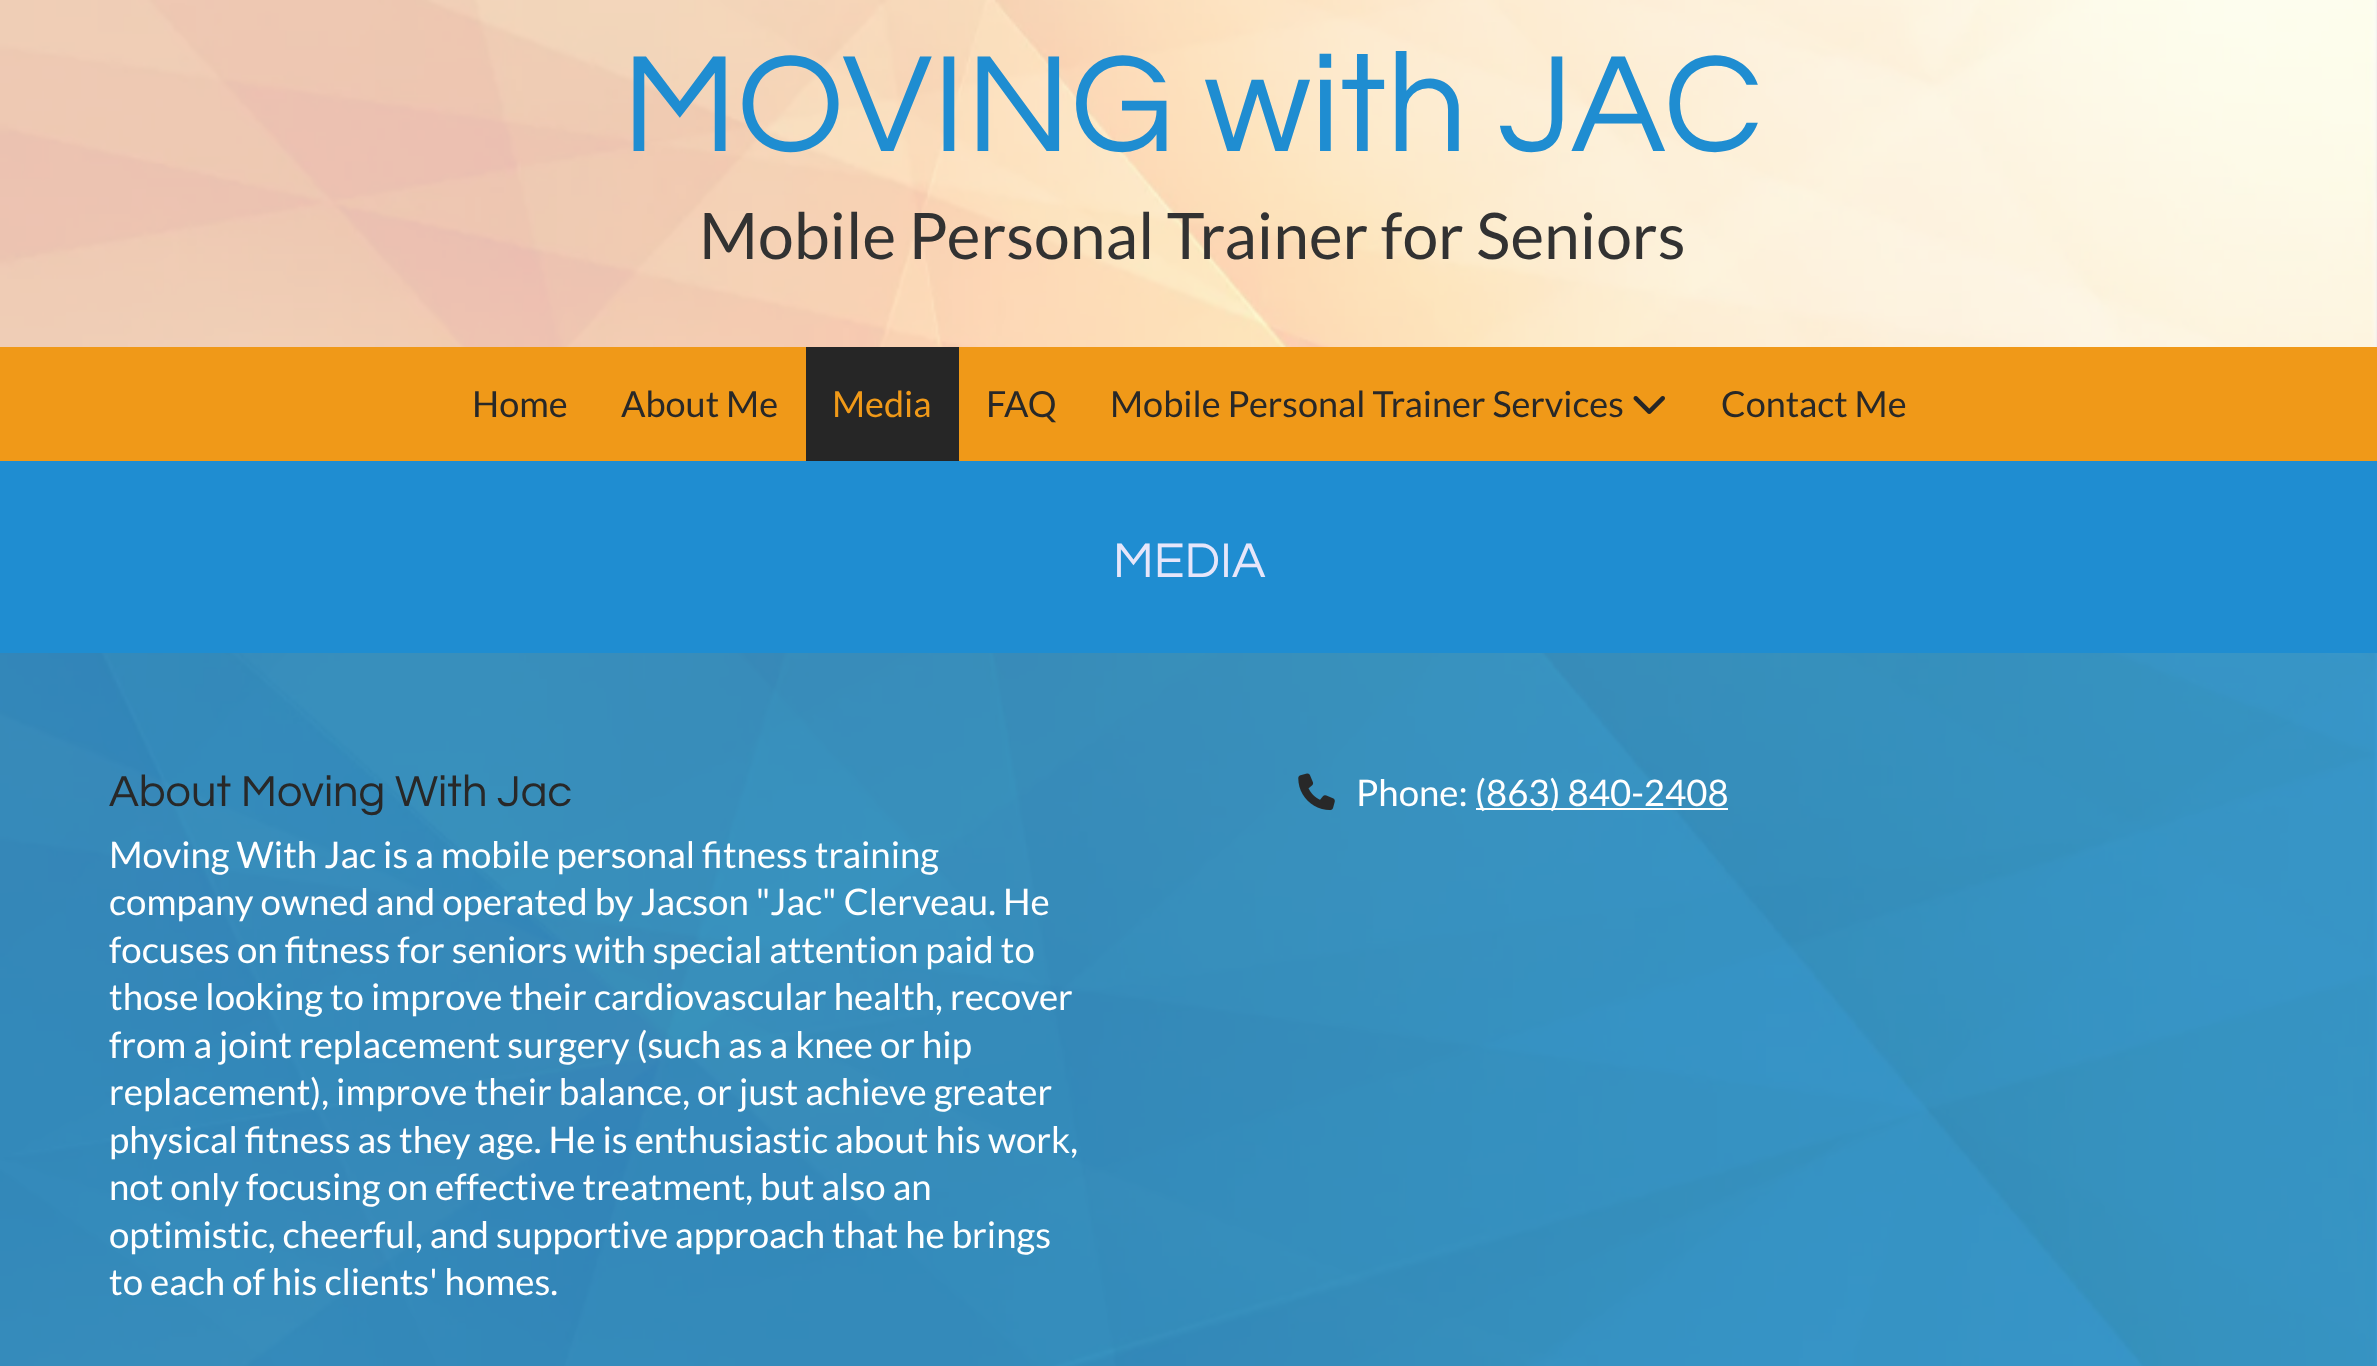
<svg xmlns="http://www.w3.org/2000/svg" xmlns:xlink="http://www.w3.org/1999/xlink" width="2377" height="1366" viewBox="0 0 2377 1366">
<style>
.cls-1{font:142.75px Questrial;fill:#1f8dd1}
.cls-2{font:64.2px Lato;fill:#323232}
.cls-3{font:36px Lato;fill:#282828}
.cls-4{font:36px Lato;fill:#f09918}
.cls-5{font:50.5px Questrial;fill:#e6e6fa}
.cls-6{font:45px Questrial;fill:#282828}
.cls-7{font:36.55px Lato;fill:#ffffff}
</style>
<rect width="100%" height="100%" fill="#ffffff"/>
<image xlink:href="image0.png" x="0" y="0" width="2377" height="1366"/>
<rect fill="#fcfcfc" fill-opacity="0.7" x="0" y="0" width="2377" height="347"/>
<rect fill="#f09918" x="0" y="347" width="2377" height="114"/>
<rect fill="#262626" x="806" y="347" width="153" height="114"/>
<image xlink:href="image1.png" x="1633" y="396" width="32" height="18"/>
<rect fill="#1f8dd1" x="0" y="461" width="2377" height="192"/>
<rect fill="#1f8ecf" fill-opacity="0.89" x="0" y="653" width="2377" height="713"/>
<image xlink:href="image2.png" x="1298" y="773" width="37" height="38"/>
<rect fill="#ffffff" x="1476" y="808" width="252" height="2"/>
<text class="cls-1" x="622" y="151">MOVING with JAC</text>
<text class="cls-2" x="699" y="259">Mobile Personal Trainer for Seniors</text>
<text class="cls-3" x="472" y="417">Home</text>
<text class="cls-3" x="621" y="417">About Me</text>
<text class="cls-4" x="832" y="417">Media</text>
<text class="cls-3" x="986" y="417">FAQ</text>
<text class="cls-3" x="1110" y="417">Mobile Personal Trainer Services</text>
<text class="cls-3" x="1721" y="417">Contact Me</text>
<text class="cls-5" x="1113" y="577">MEDIA</text>
<text class="cls-6" x="109" y="806">About Moving With Jac</text>
<text class="cls-7"><tspan x="109" y="868">Moving With Jac is a mobile personal fitness training</tspan><tspan x="109" y="915">company owned and operated by Jacson "Jac" Clerveau. He</tspan><tspan x="109" y="963">focuses on fitness for seniors with special attention paid to</tspan><tspan x="109" y="1010">those looking to improve their cardiovascular health, recover</tspan><tspan x="109" y="1058">from a joint replacement surgery (such as a knee or hip</tspan><tspan x="109" y="1105">replacement), improve their balance, or just achieve greater</tspan><tspan x="109" y="1153">physical fitness as they age. He is enthusiastic about his work,</tspan><tspan x="109" y="1200">not only focusing on effective treatment, but also an</tspan><tspan x="109" y="1248">optimistic, cheerful, and supportive approach that he brings</tspan><tspan x="109" y="1295">to each of his clients' homes.</tspan></text>
<text class="cls-7" x="1356" y="806">Phone:</text>
<text class="cls-7" x="1475" y="806">(863) 840-2408</text>
</svg>
